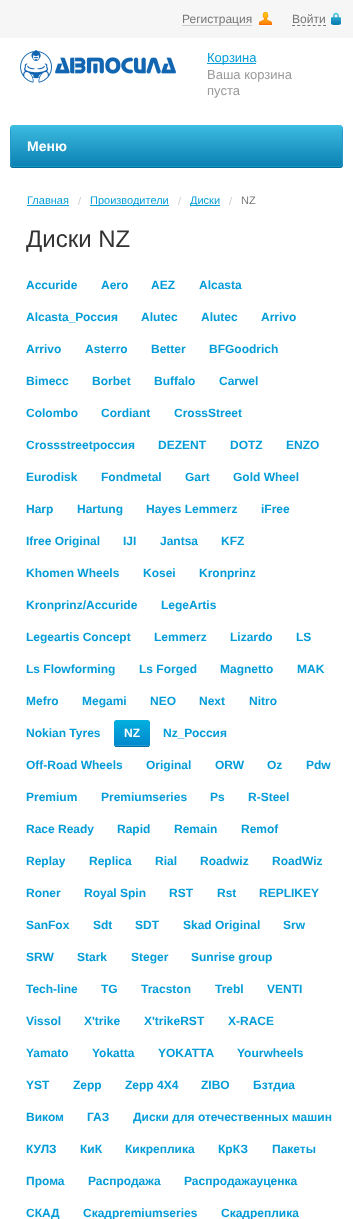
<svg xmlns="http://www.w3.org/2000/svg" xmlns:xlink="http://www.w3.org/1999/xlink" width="353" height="1219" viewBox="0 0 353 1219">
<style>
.cls-1{font:12px Liberation Sans;fill:#777777}
.cls-2{font:13px Liberation Sans;fill:#029cd8}
.cls-3{font:13px Liberation Sans;fill:#999999}
.cls-4{font:bold 14px Liberation Sans;fill:#ffffff}
.cls-5{font:11px Liberation Sans;fill:#029cd8}
.cls-6{font:11px Liberation Sans;fill:#cfcfcf}
.cls-7{font:11px Liberation Sans;fill:#777777}
.cls-8{font:24px Liberation Sans;fill:#333333}
.cls-9{font:bold 12px Liberation Sans;fill:#029cd8}
.cls-10{font:bold 12px Liberation Sans;fill:#ffffff}
</style>
<defs>
<linearGradient id="g1" gradientUnits="userSpaceOnUse" x1="177" y1="125" x2="177" y2="168"><stop offset="0" stop-color="#3dbbe0"/><stop offset="1" stop-color="#0a7fb2"/></linearGradient>
<clipPath id="clip1"><rect x="114" y="720" width="36" height="27" rx="2"/></clipPath>
<linearGradient id="g2" gradientUnits="userSpaceOnUse" x1="132" y1="720" x2="132" y2="746"><stop offset="0" stop-color="#03b0e0"/><stop offset="1" stop-color="#0187cc"/></linearGradient>
<clipPath id="clip2"><rect x="190" y="191" width="30" height="18"/></clipPath>
</defs>
<rect width="100%" height="100%" fill="#ffffff"/>
<rect fill="#f6f6f6" x="0" y="0" width="353" height="38"/>
<image xlink:href="image0.png" x="259" y="11" width="13" height="15"/>
<rect fill="#cccccc" x="182" y="25" width="70" height="1"/>
<image xlink:href="image1.png" x="331" y="13" width="10" height="13"/>
<path fill="none" stroke="#777777" stroke-dasharray="3 2.17" d="M292 25.5H326"/>
<image xlink:href="image2.png" x="20" y="50" width="156" height="33"/>
<rect fill="#029cd8" x="207" y="63" width="49" height="1"/>
<rect fill="url(#g1)" x="10" y="125" width="333" height="43" rx="4"/>
<path fill="#0d99c2" d="M10 162C10 165 10 168 14 168H339C343 168 343 165 343 162C343 164 341 166 339 166H14C12 166 10 164 10 162Z"/>
<path fill="#2899c5" d="M11 166C11 167 13 168 14 168H339C341 168 343 166 343 164V129C343 128 342 126 341 126L342 128V163C342 165 340 167 338 167H13Z"/>
<path fill="#2899c5" d="M12 126C11 126 10 128 10 129V164C10 166 12 168 14 168H339C340 168 342 167 342 166L340 167H15C13 167 11 165 11 163V128Z"/>
<path fill="#3fbde1" d="M14 127H339C341 127 343 129 343 131C343 128 343 125 339 125H14C10 125 10 128 10 131C10 129 12 127 14 127Z"/>
<path fill="#096b97" d="M10 163C10 166 11 168 14 168H339C342 168 343 166 343 163C343 165 341 167 339 167H14C12 167 10 165 10 163Z"/>
<rect fill="#029cd8" x="27" y="205" width="42" height="1"/>
<rect fill="#029cd8" x="90" y="205" width="79" height="1"/>
<rect fill="#029cd8" x="190" y="205" width="30" height="1"/>
<g clip-path="url(#clip1)">
<path fill="url(#g2)" d="M116 720H148C149 720 150 721 150 722V746H114V722C114 721 115 720 116 720Z"/>
</g>
<path fill="#2798d4" d="M114 744V745C114 745.5 115 746 116 746H148C149 746 150 745.5 150 745V744C150 745 149 745 148 745H116C115 745 114 745 114 744Z"/>
<rect fill="#0070a2" x="115" y="746" width="34" height="1"/>
<text class="cls-1" x="182" y="23">Регистрация</text>
<text class="cls-1" x="292" y="23">Войти</text>
<text class="cls-2" x="207" y="62">Корзина</text>
<text class="cls-3"><tspan x="207" y="79">Ваша корзина</tspan><tspan x="207" y="95">пуста</tspan></text>
<text class="cls-4" x="27" y="151">Меню</text>
<text class="cls-5" x="27" y="204">Главная</text>
<text class="cls-6" x="78" y="205">/</text>
<text class="cls-5" x="90" y="204">Производители</text>
<text class="cls-6" x="178" y="205">/</text>
<g clip-path="url(#clip2)">
<text class="cls-5" x="190" y="204">Диски</text>
</g>
<text class="cls-6" x="229" y="205">/</text>
<text class="cls-7" x="241" y="204">NZ</text>
<text class="cls-8" x="26" y="247">Диски NZ</text>
<text class="cls-9" x="26" y="289">Accuride</text>
<text class="cls-9" x="101" y="289">Aero</text>
<text class="cls-9" x="151" y="289">AEZ</text>
<text class="cls-9" x="199" y="289">Alcasta</text>
<text class="cls-9" x="26" y="321">Alcasta_Россия</text>
<text class="cls-9" x="141" y="321">Alutec</text>
<text class="cls-9" x="201" y="321">Alutec</text>
<text class="cls-9" x="261" y="321">Arrivo</text>
<text class="cls-9" x="26" y="353">Arrivo</text>
<text class="cls-9" x="85" y="353">Asterro</text>
<text class="cls-9" x="151" y="353">Better</text>
<text class="cls-9" x="209" y="353">BFGoodrich</text>
<text class="cls-9" x="26" y="385">Bimecc</text>
<text class="cls-9" x="92" y="385">Borbet</text>
<text class="cls-9" x="154" y="385">Buffalo</text>
<text class="cls-9" x="219" y="385">Carwel</text>
<text class="cls-9" x="26" y="417">Colombo</text>
<text class="cls-9" x="101" y="417">Cordiant</text>
<text class="cls-9" x="174" y="417">CrossStreet</text>
<text class="cls-9" x="26" y="449">Crossstreetроссия</text>
<text class="cls-9" x="158" y="449">DEZENT</text>
<text class="cls-9" x="230" y="449">DOTZ</text>
<text class="cls-9" x="286" y="449">ENZO</text>
<text class="cls-9" x="26" y="481">Eurodisk</text>
<text class="cls-9" x="101" y="481">Fondmetal</text>
<text class="cls-9" x="185" y="481">Gart</text>
<text class="cls-9" x="233" y="481">Gold Wheel</text>
<text class="cls-9" x="26" y="513">Harp</text>
<text class="cls-9" x="77" y="513">Hartung</text>
<text class="cls-9" x="146" y="513">Hayes Lemmerz</text>
<text class="cls-9" x="261" y="513">iFree</text>
<text class="cls-9" x="26" y="545">Ifree Original</text>
<text class="cls-9" x="123" y="545">IJI</text>
<text class="cls-9" x="160" y="545">Jantsa</text>
<text class="cls-9" x="221" y="545">KFZ</text>
<text class="cls-9" x="26" y="577">Khomen Wheels</text>
<text class="cls-9" x="143" y="577">Kosei</text>
<text class="cls-9" x="199" y="577">Kronprinz</text>
<text class="cls-9" x="26" y="609">Kronprinz/Accuride</text>
<text class="cls-9" x="161" y="609">LegeArtis</text>
<text class="cls-9" x="26" y="641">Legeartis Concept</text>
<text class="cls-9" x="154" y="641">Lemmerz</text>
<text class="cls-9" x="230" y="641">Lizardo</text>
<text class="cls-9" x="296" y="641">LS</text>
<text class="cls-9" x="26" y="673">Ls Flowforming</text>
<text class="cls-9" x="139" y="673">Ls Forged</text>
<text class="cls-9" x="220" y="673">Magnetto</text>
<text class="cls-9" x="297" y="673">MAK</text>
<text class="cls-9" x="26" y="705">Mefro</text>
<text class="cls-9" x="82" y="705">Megami</text>
<text class="cls-9" x="150" y="705">NEO</text>
<text class="cls-9" x="199" y="705">Next</text>
<text class="cls-9" x="249" y="705">Nitro</text>
<text class="cls-9" x="26" y="737">Nokian Tyres</text>
<text class="cls-10" x="124" y="737">NZ</text>
<text class="cls-9" x="163" y="737">Nz_Россия</text>
<text class="cls-9" x="26" y="769">Off-Road Wheels</text>
<text class="cls-9" x="146" y="769">Original</text>
<text class="cls-9" x="215" y="769">ORW</text>
<text class="cls-9" x="267" y="769">Oz</text>
<text class="cls-9" x="306" y="769">Pdw</text>
<text class="cls-9" x="26" y="801">Premium</text>
<text class="cls-9" x="101" y="801">Premiumseries</text>
<text class="cls-9" x="210" y="801">Ps</text>
<text class="cls-9" x="248" y="801">R-Steel</text>
<text class="cls-9" x="26" y="833">Race Ready</text>
<text class="cls-9" x="117" y="833">Rapid</text>
<text class="cls-9" x="174" y="833">Remain</text>
<text class="cls-9" x="241" y="833">Remof</text>
<text class="cls-9" x="26" y="865">Replay</text>
<text class="cls-9" x="89" y="865">Replica</text>
<text class="cls-9" x="155" y="865">Rial</text>
<text class="cls-9" x="200" y="865">Roadwiz</text>
<text class="cls-9" x="272" y="865">RoadWiz</text>
<text class="cls-9" x="26" y="897">Roner</text>
<text class="cls-9" x="84" y="897">Royal Spin</text>
<text class="cls-9" x="169" y="897">RST</text>
<text class="cls-9" x="217" y="897">Rst</text>
<text class="cls-9" x="259" y="897">RЕPLIKEY</text>
<text class="cls-9" x="26" y="929">SanFox</text>
<text class="cls-9" x="93" y="929">Sdt</text>
<text class="cls-9" x="135" y="929">SDT</text>
<text class="cls-9" x="183" y="929">Skad Original</text>
<text class="cls-9" x="283" y="929">Srw</text>
<text class="cls-9" x="26" y="961">SRW</text>
<text class="cls-9" x="77" y="961">Stark</text>
<text class="cls-9" x="131" y="961">Steger</text>
<text class="cls-9" x="191" y="961">Sunrise group</text>
<text class="cls-9" x="26" y="993">Tech-line</text>
<text class="cls-9" x="101" y="993">TG</text>
<text class="cls-9" x="141" y="993">Tracston</text>
<text class="cls-9" x="215" y="993">Trebl</text>
<text class="cls-9" x="267" y="993">VENTI</text>
<text class="cls-9" x="26" y="1025">Vissol</text>
<text class="cls-9" x="84" y="1025">X'trike</text>
<text class="cls-9" x="144" y="1025">X'trikeRST</text>
<text class="cls-9" x="228" y="1025">X-RACE</text>
<text class="cls-9" x="26" y="1057">Yamato</text>
<text class="cls-9" x="92" y="1057">Yokatta</text>
<text class="cls-9" x="158" y="1057">YOKATTA</text>
<text class="cls-9" x="237" y="1057">Yourwheels</text>
<text class="cls-9" x="26" y="1089">YST</text>
<text class="cls-9" x="73" y="1089">Zepp</text>
<text class="cls-9" x="125" y="1089">Zepp 4Х4</text>
<text class="cls-9" x="201" y="1089">ZIBO</text>
<text class="cls-9" x="253" y="1089">Бзтдиа</text>
<text class="cls-9" x="26" y="1121">Виком</text>
<text class="cls-9" x="87" y="1121">ГАЗ</text>
<text class="cls-9" x="133" y="1121">Диски для отечественных машин</text>
<text class="cls-9" x="26" y="1153">КУЛЗ</text>
<text class="cls-9" x="80" y="1153">КиК</text>
<text class="cls-9" x="125" y="1153">Кикреплика</text>
<text class="cls-9" x="218" y="1153">КрКЗ</text>
<text class="cls-9" x="272" y="1153">Пакеты</text>
<text class="cls-9" x="26" y="1185">Прома</text>
<text class="cls-9" x="88" y="1185">Распродажа</text>
<text class="cls-9" x="184" y="1185">Распродажауценка</text>
<text class="cls-9" x="26" y="1217">СКАД</text>
<text class="cls-9" x="83" y="1217">Скадpremiumseries</text>
<text class="cls-9" x="221" y="1217">Скадреплика</text>
</svg>
